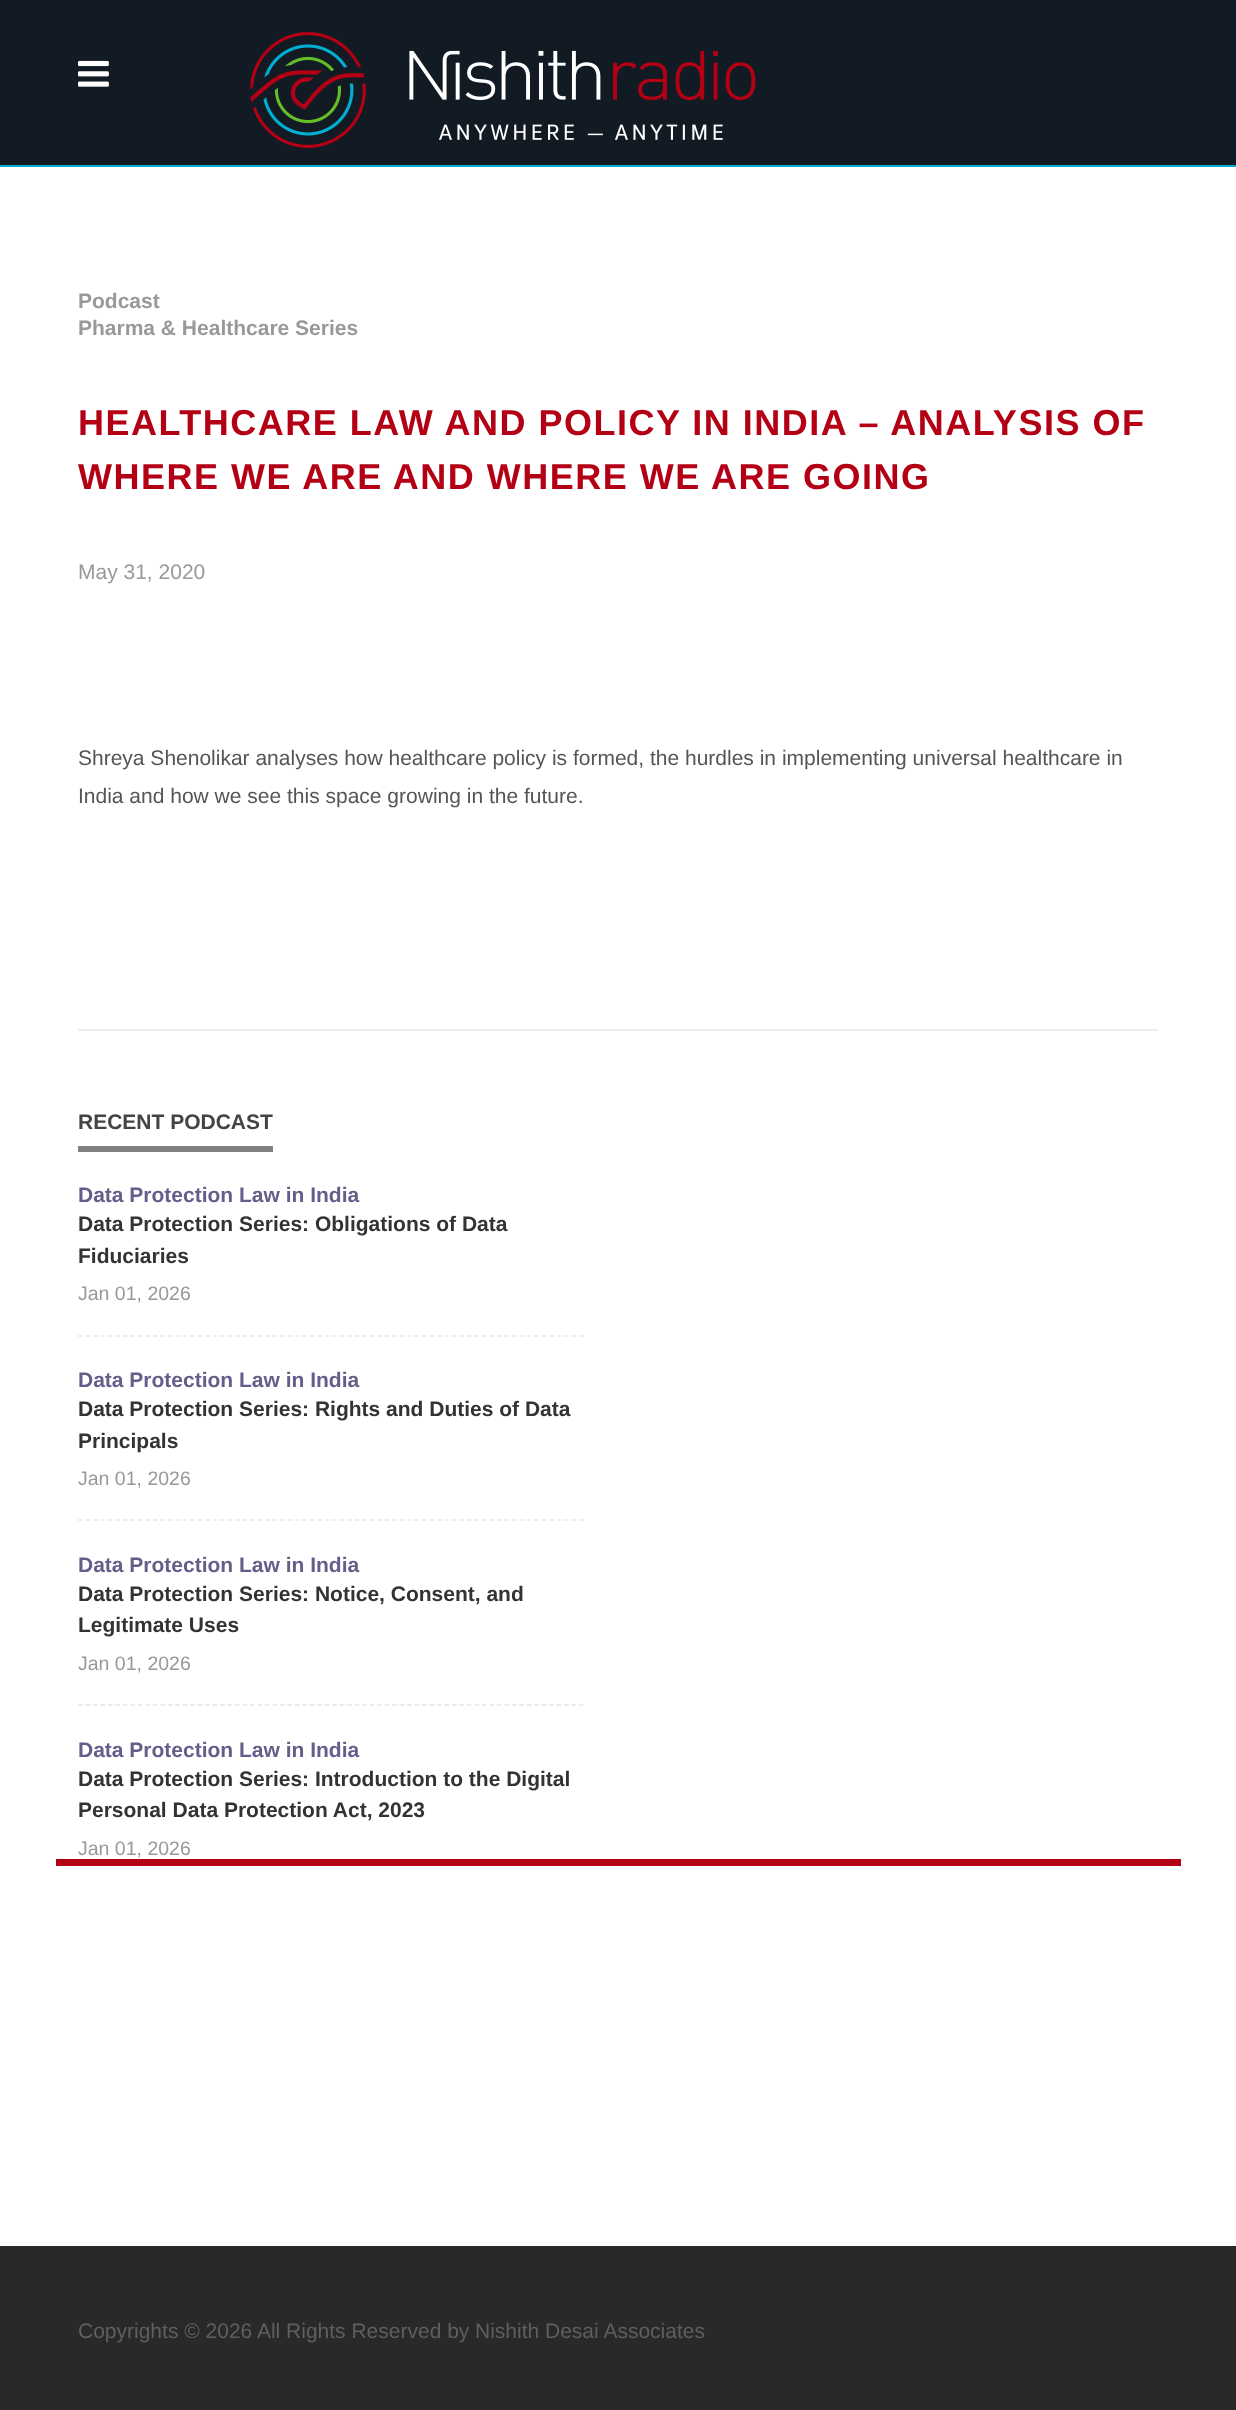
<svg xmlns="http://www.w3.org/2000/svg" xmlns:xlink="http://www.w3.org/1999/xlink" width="1236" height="2410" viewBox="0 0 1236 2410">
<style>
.cls-1{font:bold 21px Liberation Sans;fill:#999999}
.cls-2{font:bold 36px Liberation Sans;letter-spacing:1.5px;fill:#b40014}
.cls-3{font:21px Liberation Sans;fill:#999999}
.cls-4{font:21px Liberation Sans;fill:#555555}
.cls-5{font:bold 21px Liberation Sans;fill:#444444}
.cls-6{font:bold 21px Liberation Sans;fill:#655d8a}
.cls-7{font:bold 21px Liberation Sans;fill:#333333}
.cls-8{font:19.5px Liberation Sans;fill:#999999}
.cls-9{font:21px Liberation Sans;fill:#5f5f5f}
</style>
<rect width="100%" height="100%" fill="#ffffff"/>
<rect fill="#121b24" x="0" y="0" width="1236" height="165"/>
<rect fill="#00afd0" x="0" y="165" width="1236" height="2"/>
<image xlink:href="image0.png" x="78" y="60" width="31" height="27"/>
<image xlink:href="image1.png" x="250" y="32" width="506" height="116"/>
<rect fill="#b40014" x="56" y="1859" width="1125" height="7"/>
<rect fill="#eeeeee" x="78" y="1029" width="1080" height="2"/>
<rect fill="#808080" x="78" y="1146" width="195" height="6"/>
<path fill="none" stroke="#e5e5e5" stroke-width="1.5" stroke-dasharray="4.5 2.98" d="M78 1336H583.5"/>
<path fill="none" stroke="#e5e5e5" stroke-width="1.5" stroke-dasharray="4.5 2.98" d="M78 1520H583.5"/>
<path fill="none" stroke="#e5e5e5" stroke-width="1.5" stroke-dasharray="4.5 2.98" d="M78 1705H583.5"/>
<rect fill="#292929" x="0" y="2246" width="1236" height="164"/>
<text class="cls-1"><tspan x="78" y="308">Podcast</tspan><tspan x="78" y="335">Pharma &amp; Healthcare Series</tspan></text>
<text class="cls-2"><tspan x="78" y="435">HEALTHCARE LAW AND POLICY IN INDIA – ANALYSIS OF</tspan><tspan x="78" y="489">WHERE WE ARE AND WHERE WE ARE GOING</tspan></text>
<text class="cls-3" x="78" y="579">May 31, 2020</text>
<text class="cls-4"><tspan x="78" y="765">Shreya Shenolikar analyses how healthcare policy is formed, the hurdles in implementing universal healthcare in</tspan><tspan x="78" y="803">India and how we see this space growing in the future.</tspan></text>
<text class="cls-5" x="78" y="1129">RECENT PODCAST</text>
<text class="cls-6" x="78" y="1202">Data Protection Law in India</text>
<text class="cls-7"><tspan x="78" y="1231">Data Protection Series: Obligations of Data</tspan><tspan x="78" y="1263">Fiduciaries</tspan></text>
<text class="cls-8" x="78" y="1300">Jan 01, 2026</text>
<text class="cls-6" x="78" y="1387">Data Protection Law in India</text>
<text class="cls-7"><tspan x="78" y="1416">Data Protection Series: Rights and Duties of Data</tspan><tspan x="78" y="1448">Principals</tspan></text>
<text class="cls-8" x="78" y="1485">Jan 01, 2026</text>
<text class="cls-6" x="78" y="1572">Data Protection Law in India</text>
<text class="cls-7"><tspan x="78" y="1601">Data Protection Series: Notice, Consent, and</tspan><tspan x="78" y="1632">Legitimate Uses</tspan></text>
<text class="cls-8" x="78" y="1670">Jan 01, 2026</text>
<text class="cls-6" x="78" y="1757">Data Protection Law in India</text>
<text class="cls-7"><tspan x="78" y="1786">Data Protection Series: Introduction to the Digital</tspan><tspan x="78" y="1817">Personal Data Protection Act, 2023</tspan></text>
<text class="cls-8" x="78" y="1855">Jan 01, 2026</text>
<text class="cls-9" x="78" y="2338">Copyrights © 2026 All Rights Reserved by</text>
<text class="cls-9" x="475" y="2338">Nishith Desai Associates</text>
</svg>
